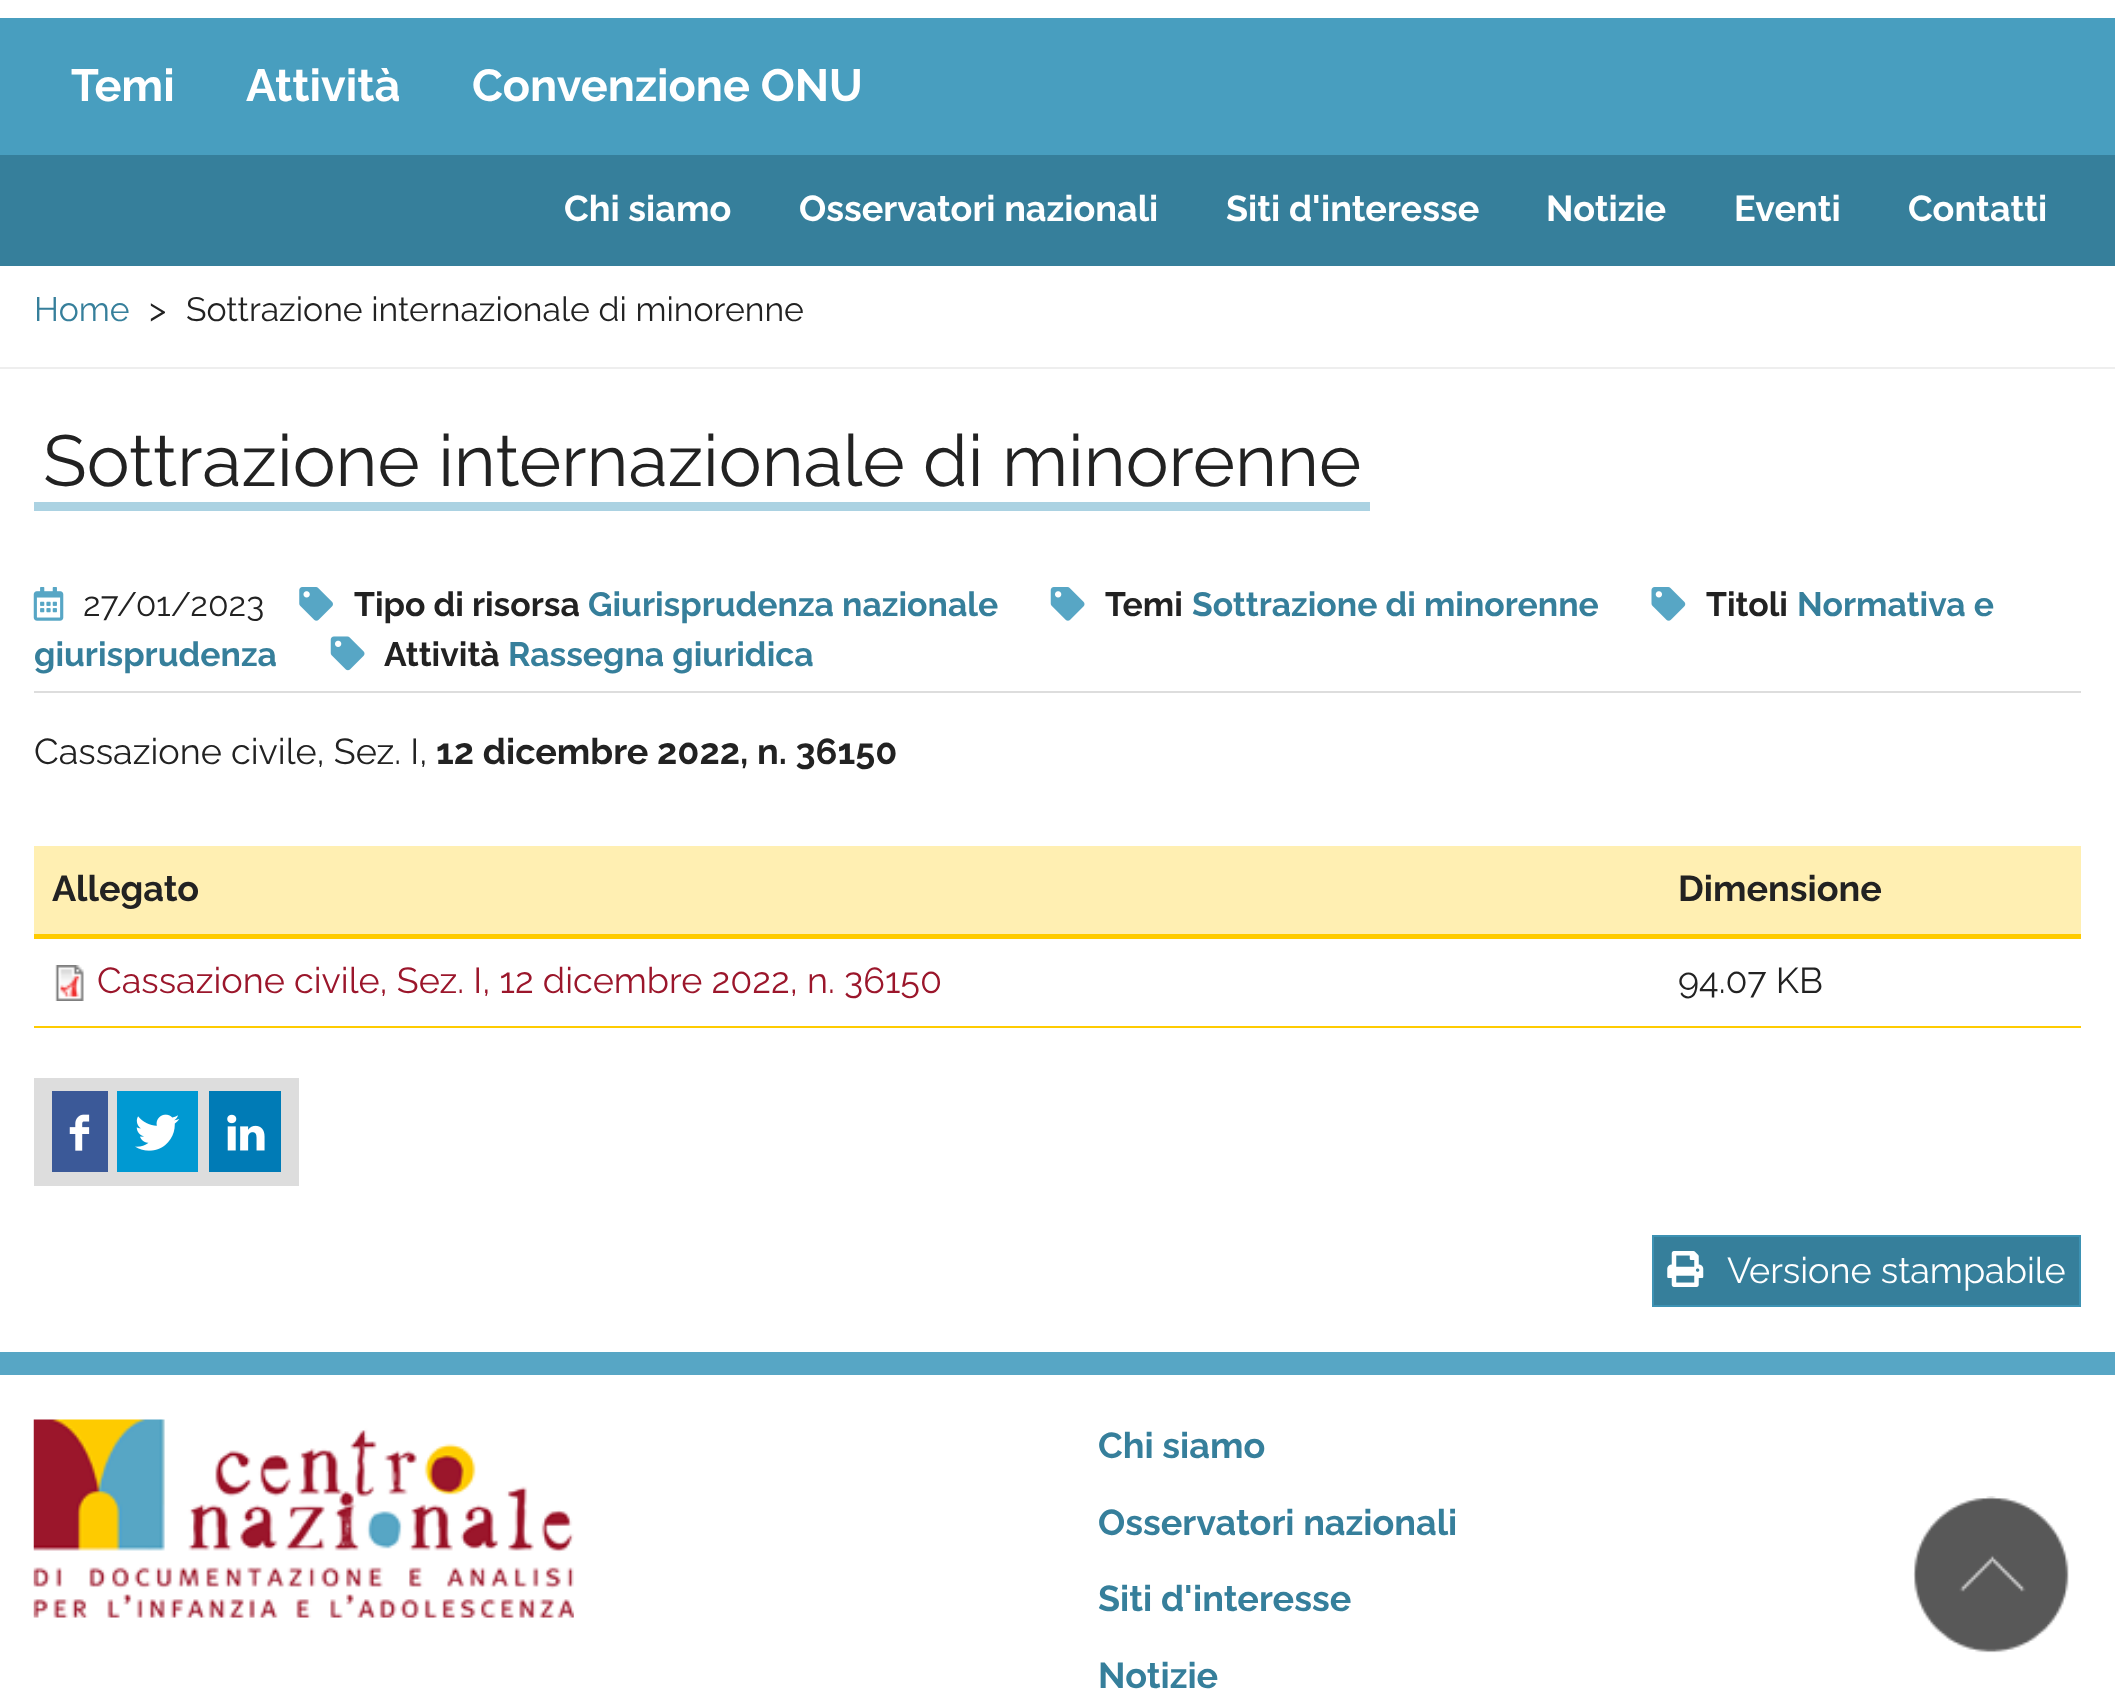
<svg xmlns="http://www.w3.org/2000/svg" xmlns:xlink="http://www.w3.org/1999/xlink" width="2115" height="1698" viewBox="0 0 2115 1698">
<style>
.cls-1{font:bold 45px Raleway;fill:#ffffff}
.cls-2{font:bold 36px Raleway;fill:#ffffff}
.cls-3{font:33.75px Raleway;fill:#367f9b}
.cls-4{font:33.75px Raleway;fill:#222222}
.cls-5{font:72px Raleway;fill:#222222}
.cls-6{font:bold 33.75px Raleway;fill:#222222}
.cls-7{font:bold 33.75px Raleway;fill:#367f9b}
.cls-8{font:36px Raleway;fill:#222222}
.cls-9{font:bold 36px Raleway;fill:#222222}
.cls-10{font:36px Raleway;fill:#9b162b}
.cls-11{font:36px Raleway;fill:#ffffff}
.cls-12{font:bold 36px Raleway;fill:#367f9b}
</style>
<rect width="100%" height="100%" fill="#ffffff"/>
<rect fill="#489ebf" x="0" y="18" width="2115" height="137"/>
<rect fill="#367f9b" x="0" y="155" width="2115" height="111"/>
<rect fill="#eeeeee" x="0" y="367" width="2115" height="2"/>
<rect fill="#abd2e2" x="34" y="502" width="1336" height="9"/>
<rect fill="#dddddd" x="34" y="691" width="2047" height="2"/>
<image xlink:href="image0.png" x="33" y="587" width="31" height="34"/>
<image xlink:href="image1.png" x="299" y="587" width="34" height="34"/>
<image xlink:href="image2.png" x="1050" y="587" width="35" height="34"/>
<image xlink:href="image3.png" x="1651" y="587" width="35" height="34"/>
<image xlink:href="image4.png" x="330" y="636" width="35" height="35"/>
<rect fill="#ffefb2" x="34" y="846" width="2047" height="88"/>
<rect fill="#fecb00" x="34" y="934" width="2047" height="5"/>
<rect fill="#fecb00" x="34" y="1026" width="2047" height="2"/>
<image xlink:href="image5.png" x="55" y="965" width="29" height="36"/>
<rect fill="#dddddd" x="34" y="1078" width="265" height="108"/>
<rect fill="#3b5998" x="52" y="1091" width="56" height="81"/>
<image xlink:href="image6.png" x="69" y="1114" width="21" height="37"/>
<rect fill="#0099d2" x="117" y="1091" width="81" height="81"/>
<image xlink:href="image7.png" x="135" y="1114" width="45" height="37"/>
<rect fill="#007bb6" x="209" y="1091" width="72" height="81"/>
<image xlink:href="image8.png" x="227" y="1114" width="38" height="37"/>
<rect fill="#367f9b" stroke="#3d92b3" stroke-width="2" x="1653" y="1236" width="427" height="70"/>
<image xlink:href="image9.png" x="1667" y="1251" width="37" height="36"/>
<rect fill="#57a6c5" x="0" y="1352" width="2115" height="23"/>
<image xlink:href="image10.png" x="33" y="1419" width="541" height="199"/>
<image xlink:href="image11.png" x="1913" y="1496" width="156" height="157"/>
<text class="cls-1" x="71" y="101">Temi</text>
<text class="cls-1" x="246" y="101">Attività</text>
<text class="cls-1" x="472" y="101">Convenzione ONU</text>
<text class="cls-2" x="564" y="221">Chi siamo</text>
<text class="cls-2" x="799" y="221">Osservatori nazionali</text>
<text class="cls-2" x="1226" y="221">Siti d'interesse</text>
<text class="cls-2" x="1546" y="221">Notizie</text>
<text class="cls-2" x="1734" y="221">Eventi</text>
<text class="cls-2" x="1908" y="221">Contatti</text>
<text class="cls-3" x="34" y="321">Home</text>
<text class="cls-4" x="149" y="321">&gt;</text>
<text class="cls-4" x="186" y="321">Sottrazione internazionale di minorenne</text>
<text class="cls-5" x="43" y="486">Sottrazione internazionale di minorenne</text>
<text class="cls-4" x="83" y="616">27/01/2023</text>
<text class="cls-6" x="354" y="616">Tipo di risorsa</text>
<text class="cls-7" x="588" y="616">Giurisprudenza nazionale</text>
<text class="cls-6" x="1105" y="616">Temi</text>
<text class="cls-7" x="1192" y="616">Sottrazione di minorenne</text>
<text class="cls-6" x="1706" y="616">Titoli</text>
<text class="cls-7" x="1797" y="616">Normativa e</text>
<text class="cls-7" x="34" y="666">giurisprudenza</text>
<text class="cls-6" x="384" y="666">Attività</text>
<text class="cls-7" x="508" y="666">Rassegna giuridica</text>
<text class="cls-8" x="34" y="764">Cassazione civile, Sez. I,</text>
<text class="cls-9" x="436" y="764">12 dicembre 2022, n. 36150</text>
<text class="cls-9" x="52" y="901">Allegato</text>
<text class="cls-9" x="1678" y="901">Dimensione</text>
<text class="cls-10" x="97" y="993">Cassazione civile, Sez. I, 12 dicembre 2022, n. 36150</text>
<text class="cls-8" x="1678" y="993">94.07 KB</text>
<text class="cls-11" x="1727" y="1283">Versione stampabile</text>
<text class="cls-12" x="1098" y="1458">Chi siamo</text>
<text class="cls-12" x="1098" y="1535">Osservatori nazionali</text>
<text class="cls-12" x="1098" y="1611">Siti d'interesse</text>
<text class="cls-12" x="1098" y="1688">Notizie</text>
</svg>
